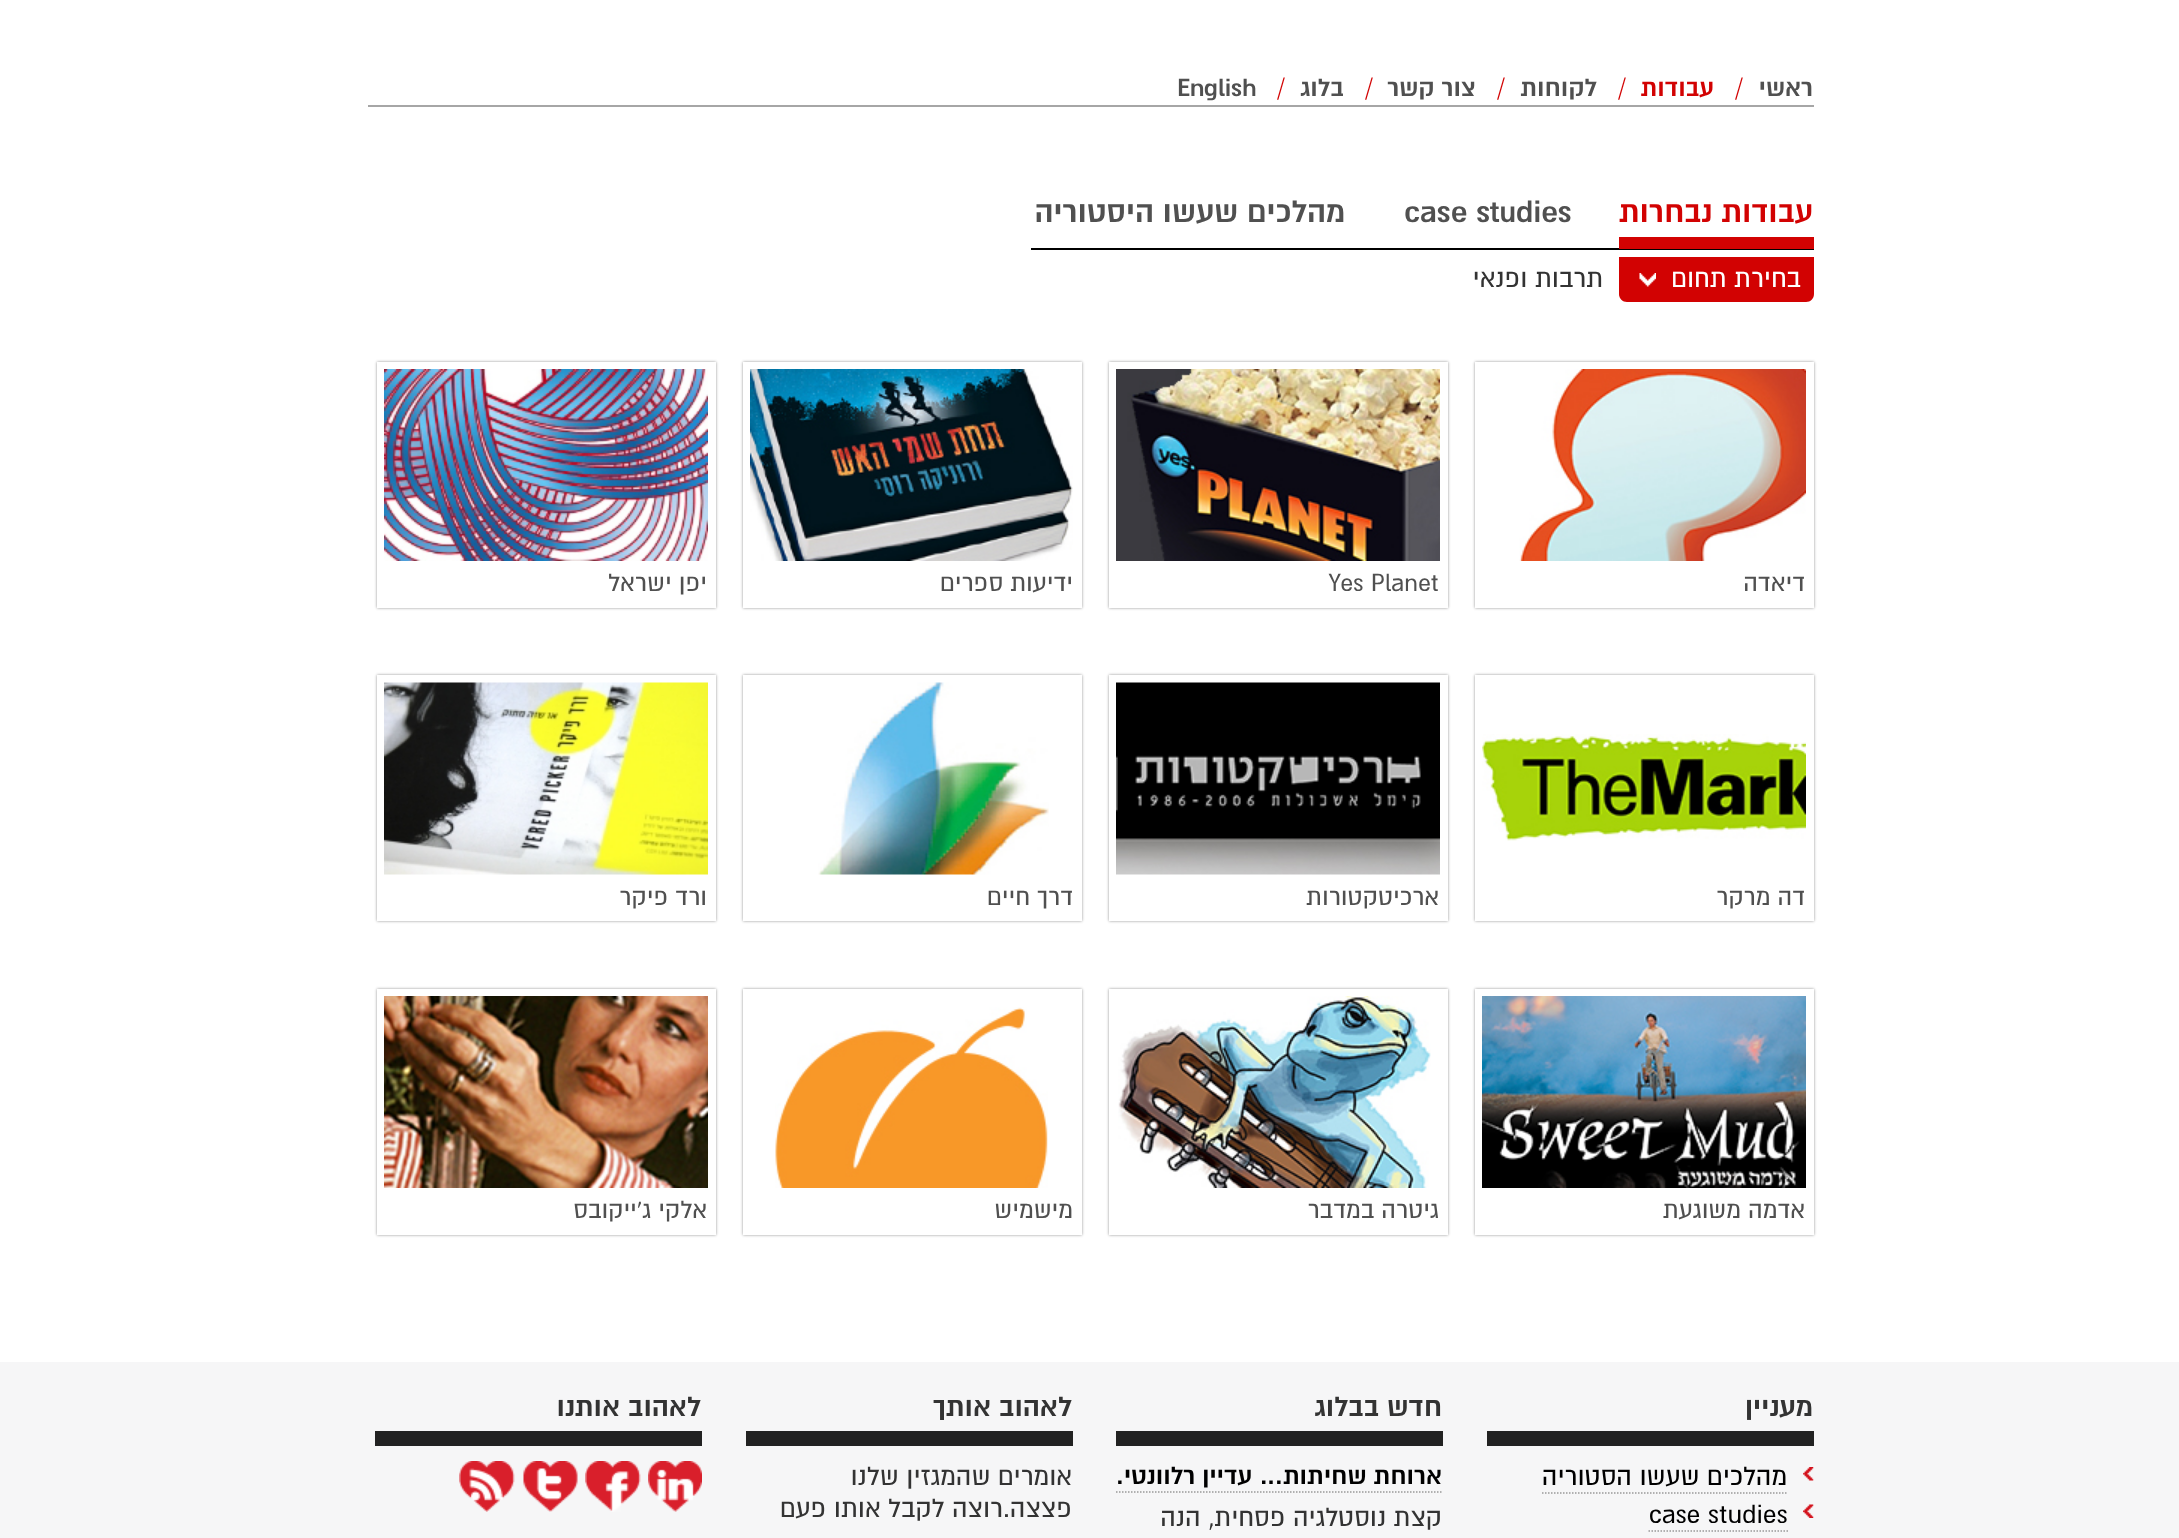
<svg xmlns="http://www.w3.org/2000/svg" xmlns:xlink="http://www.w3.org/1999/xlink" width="2179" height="1538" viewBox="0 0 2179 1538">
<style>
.cls-1{font:24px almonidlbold;direction:rtl;fill:#505050}
.cls-2{font:25.5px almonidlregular;fill:#d20202}
.cls-3{font:24px almonidlbold;direction:rtl;fill:#d20202}
.cls-4{font:24px almonidlbold;fill:#505050}
.cls-5{font:30px almonidlbold;direction:rtl;fill:#d20202}
.cls-6{font:30px almonidlbold;fill:#505050}
.cls-7{font:30px almonidlbold;direction:rtl;fill:#505050}
.cls-8{font:25.5px almonidlregular;direction:rtl;fill:#ffffff}
.cls-9{font:25.5px almonidlregular;direction:rtl;fill:#333333}
.cls-10{font:24px almonidlregular;direction:rtl;fill:#505050}
.cls-11{font:24px almonidlregular;fill:#505050}
.cls-12{font:27px almonidlbold;direction:rtl;fill:#333333}
.cls-13{font:25.5px almonidlregular;direction:rtl;fill:#000000}
.cls-14{font:25.5px almonidlregular;fill:#000000}
.cls-15{font:24px almonidlbold;direction:rtl;fill:#000000}
</style>
<rect width="100%" height="100%" fill="#ffffff"/>
<rect fill="#a6a6a6" x="368" y="105" width="1446" height="2"/>
<rect fill="#000000" x="1031" y="248" width="783" height="2"/>
<rect fill="#d20202" x="1619" y="237" width="195" height="12"/>
<path fill="#d20202" d="M1619 257H1814V294C1814 298.5 1810.5 302 1806 302H1627C1622.5 302 1619 298.5 1619 294Z"/>
<image xlink:href="image0.png" x="1639" y="273" width="17" height="14"/>
<rect fill="#7a7a7a" fill-opacity="0.8" filter="blur(1.5px)" x="1475" y="362" width="339" height="246"/>
<rect fill="#ffffff" x="1475" y="362" width="339" height="246"/>
<image xlink:href="image1.png" x="1519" y="369" width="287" height="192"/>
<rect fill="#7a7a7a" fill-opacity="0.8" filter="blur(1.5px)" x="1109" y="362" width="339" height="246"/>
<rect fill="#ffffff" x="1109" y="362" width="339" height="246"/>
<image xlink:href="image2.png" x="1116" y="369" width="324" height="192"/>
<rect fill="#7a7a7a" fill-opacity="0.8" filter="blur(1.5px)" x="743" y="362" width="339" height="246"/>
<rect fill="#ffffff" x="743" y="362" width="339" height="246"/>
<image xlink:href="image3.png" x="750" y="369" width="323" height="192"/>
<rect fill="#7a7a7a" fill-opacity="0.8" filter="blur(1.5px)" x="377" y="362" width="339" height="246"/>
<rect fill="#ffffff" x="377" y="362" width="339" height="246"/>
<image xlink:href="image4.png" x="384" y="369" width="324" height="192"/>
<rect fill="#7a7a7a" fill-opacity="0.8" filter="blur(1.5px)" x="1475" y="675" width="339" height="246"/>
<rect fill="#ffffff" x="1475" y="675" width="339" height="246"/>
<image xlink:href="image5.png" x="1482" y="734" width="324" height="107"/>
<rect fill="#7a7a7a" fill-opacity="0.8" filter="blur(1.5px)" x="1109" y="675" width="339" height="246"/>
<rect fill="#ffffff" x="1109" y="675" width="339" height="246"/>
<image xlink:href="image6.png" x="1116" y="682" width="324" height="193"/>
<rect fill="#7a7a7a" fill-opacity="0.8" filter="blur(1.5px)" x="743" y="675" width="339" height="246"/>
<rect fill="#ffffff" x="743" y="675" width="339" height="246"/>
<image xlink:href="image7.png" x="818" y="682" width="231" height="193"/>
<rect fill="#7a7a7a" fill-opacity="0.8" filter="blur(1.5px)" x="377" y="675" width="339" height="246"/>
<rect fill="#ffffff" x="377" y="675" width="339" height="246"/>
<image xlink:href="image8.png" x="384" y="682" width="324" height="193"/>
<rect fill="#7a7a7a" fill-opacity="0.8" filter="blur(1.5px)" x="1475" y="989" width="339" height="246"/>
<rect fill="#ffffff" x="1475" y="989" width="339" height="246"/>
<image xlink:href="image9.png" x="1482" y="996" width="324" height="192"/>
<rect fill="#7a7a7a" fill-opacity="0.8" filter="blur(1.5px)" x="1109" y="989" width="339" height="246"/>
<rect fill="#ffffff" x="1109" y="989" width="339" height="246"/>
<image xlink:href="image10.png" x="1118" y="996" width="313" height="192"/>
<rect fill="#7a7a7a" fill-opacity="0.8" filter="blur(1.5px)" x="743" y="989" width="339" height="246"/>
<rect fill="#ffffff" x="743" y="989" width="339" height="246"/>
<image xlink:href="image11.png" x="775" y="1007" width="273" height="181"/>
<rect fill="#7a7a7a" fill-opacity="0.8" filter="blur(1.5px)" x="377" y="989" width="339" height="246"/>
<rect fill="#ffffff" x="377" y="989" width="339" height="246"/>
<image xlink:href="image12.png" x="384" y="996" width="324" height="192"/>
<rect fill="#f6f6f7" x="0" y="1362" width="2179" height="176"/>
<rect fill="#222222" x="1487" y="1431" width="327" height="15"/>
<image xlink:href="image13.png" x="1803" y="1467" width="11" height="14"/>
<path fill="none" stroke="#999999" stroke-width="1.5" stroke-dasharray="1.5 1.5" d="M1542 1493H1788"/>
<image xlink:href="image14.png" x="1803" y="1504" width="11" height="14"/>
<path fill="none" stroke="#999999" stroke-width="1.5" stroke-dasharray="1.5 1.5" d="M1648.5 1531H1788"/>
<rect fill="#222222" x="1116" y="1431" width="327" height="15"/>
<path fill="none" stroke="#999999" stroke-width="1.5" stroke-dasharray="1.5 1.5" d="M1116 1492H1443"/>
<rect fill="#222222" x="746" y="1431" width="327" height="15"/>
<rect fill="#222222" x="375" y="1431" width="327" height="15"/>
<image xlink:href="image15.png" x="648" y="1461" width="54" height="51"/>
<image xlink:href="image16.png" x="585" y="1461" width="56" height="51"/>
<image xlink:href="image17.png" x="523" y="1461" width="55" height="51"/>
<image xlink:href="image18.png" x="459" y="1461" width="56" height="51"/>
<text class="cls-1" x="1813" y="96">ראשי</text>
<text class="cls-2" x="1735" y="96">/</text>
<text class="cls-3" x="1714" y="96">עבודות</text>
<text class="cls-2" x="1618" y="96">/</text>
<text class="cls-1" x="1597" y="96">לקוחות</text>
<text class="cls-2" x="1497" y="96">/</text>
<text class="cls-1" x="1476" y="96">צור קשר</text>
<text class="cls-2" x="1365" y="96">/</text>
<text class="cls-1" x="1344" y="96">בלוג</text>
<text class="cls-2" x="1277" y="96">/</text>
<text class="cls-4" x="1177" y="96">English</text>
<text class="cls-5" x="1813" y="222">עבודות נבחרות</text>
<text class="cls-6" x="1404" y="222">case studies</text>
<text class="cls-7" x="1345" y="222">מהלכים שעשו היסטוריה</text>
<text class="cls-8" x="1801" y="287">בחירת תחום</text>
<text class="cls-9" x="1603" y="287">תרבות ופנאי</text>
<text class="cls-10" x="1805" y="591">דיאדה</text>
<text class="cls-11" x="1329" y="591">Yes Planet</text>
<text class="cls-10" x="1073" y="591">ידיעות ספרים</text>
<text class="cls-10" x="707" y="591">יפן ישראל</text>
<text class="cls-10" x="1805" y="905">דה מרקר</text>
<text class="cls-10" x="1439" y="905">ארכיטקטורות</text>
<text class="cls-10" x="1073" y="905">דרך חיים</text>
<text class="cls-10" x="707" y="905">ורד פיקר</text>
<text class="cls-10" x="1805" y="1218">אדמה משוגעת</text>
<text class="cls-10" x="1439" y="1218">גיטרה במדבר</text>
<text class="cls-10" x="1073" y="1218">מישמיש</text>
<text class="cls-10" x="707" y="1218">אלקי ג'ייקובס</text>
<text class="cls-12" x="1813" y="1416">מעניין</text>
<text class="cls-13" x="1787" y="1485">מהלכים שעשו הסטוריה</text>
<text class="cls-14" x="1649" y="1523">case studies</text>
<text class="cls-12" x="1442" y="1416">חדש בבלוג</text>
<text class="cls-15" x="1442" y="1484">ארוחת שחיתות… עדיין רלוונטי.</text>
<text class="cls-9" x="1442" y="1526">קצת נוסטלגיה פסחית, הנה</text>
<text class="cls-12" x="1072" y="1416">לאהוב אותך</text>
<text class="cls-9"><tspan x="1072" y="1485">אומרים שהמגזין שלנו</tspan><tspan x="1072" y="1517">פצצה.רוצה לקבל אותו פעם</tspan></text>
<text class="cls-12" x="701" y="1416">לאהוב אותנו</text>
</svg>
